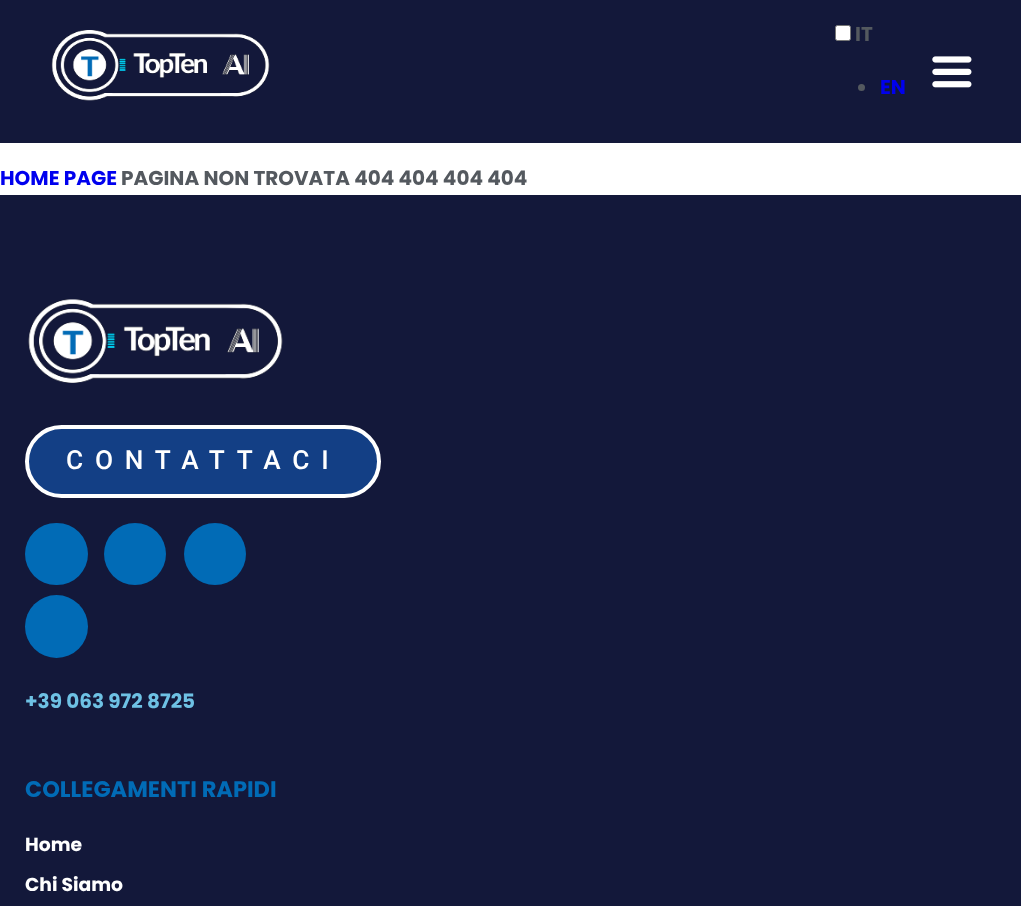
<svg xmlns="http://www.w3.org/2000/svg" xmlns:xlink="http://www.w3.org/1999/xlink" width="1021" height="906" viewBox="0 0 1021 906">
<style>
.cls-1{font:bold 20px Poppins;fill:#54595f}
.cls-2{font:bold 20px Poppins;fill:#0000ee}
.cls-3{font:500 26.25px Roboto;letter-spacing:11.75px;fill:#ffffff}
.cls-4{font:bold 20px Poppins;fill:#6ec1e4}
.cls-5{font:bold 22.5px Poppins;fill:#016bb6}
.cls-6{font:bold 18.75px Poppins;fill:#ffffff}
</style>
<rect width="100%" height="100%" fill="#ffffff"/>
<rect fill="#13183a" x="0" y="0" width="1021" height="143"/>
<image xlink:href="image0.png" x="51" y="30" width="219" height="71"/>
<rect fill="#ffffff" stroke="#767676" x="835.5" y="25.5" width="15" height="15" rx="2"/>
<circle fill="#54595f" cx="861.5" cy="87.5" r="3.5"/>
<image xlink:href="image1.png" x="932" y="56" width="40" height="32"/>
<rect fill="#13183a" x="0" y="195" width="1021" height="711"/>
<image xlink:href="image2.png" x="28" y="299" width="255" height="84"/>
<rect fill="#133f85" stroke="#ffffff" stroke-width="4" x="27" y="427" width="352" height="69" rx="34.5"/>
<rect fill="#016bb6" x="25" y="523" width="63" height="62" rx="31"/>
<circle fill="#016bb6" cx="135" cy="554" r="31"/>
<circle fill="#016bb6" cx="215" cy="554" r="31"/>
<circle fill="#016bb6" cx="56.5" cy="626.5" r="31.5"/>
<text class="cls-1" x="855" y="41">IT</text>
<text class="cls-2" x="880" y="94">EN</text>
<text class="cls-2" x="0" y="185">HOME PAGE</text>
<text class="cls-1" x="121" y="185">PAGINA NON TROVATA 404 404 404 404</text>
<text class="cls-3" x="66" y="469">CONTATTACI</text>
<text class="cls-4" x="25" y="708">+39 063 972 8725</text>
<text class="cls-5" x="25" y="797">COLLEGAMENTI RAPIDI</text>
<text class="cls-6" x="25" y="851">Home</text>
<text class="cls-6" x="25" y="891">Chi Siamo</text>
</svg>
